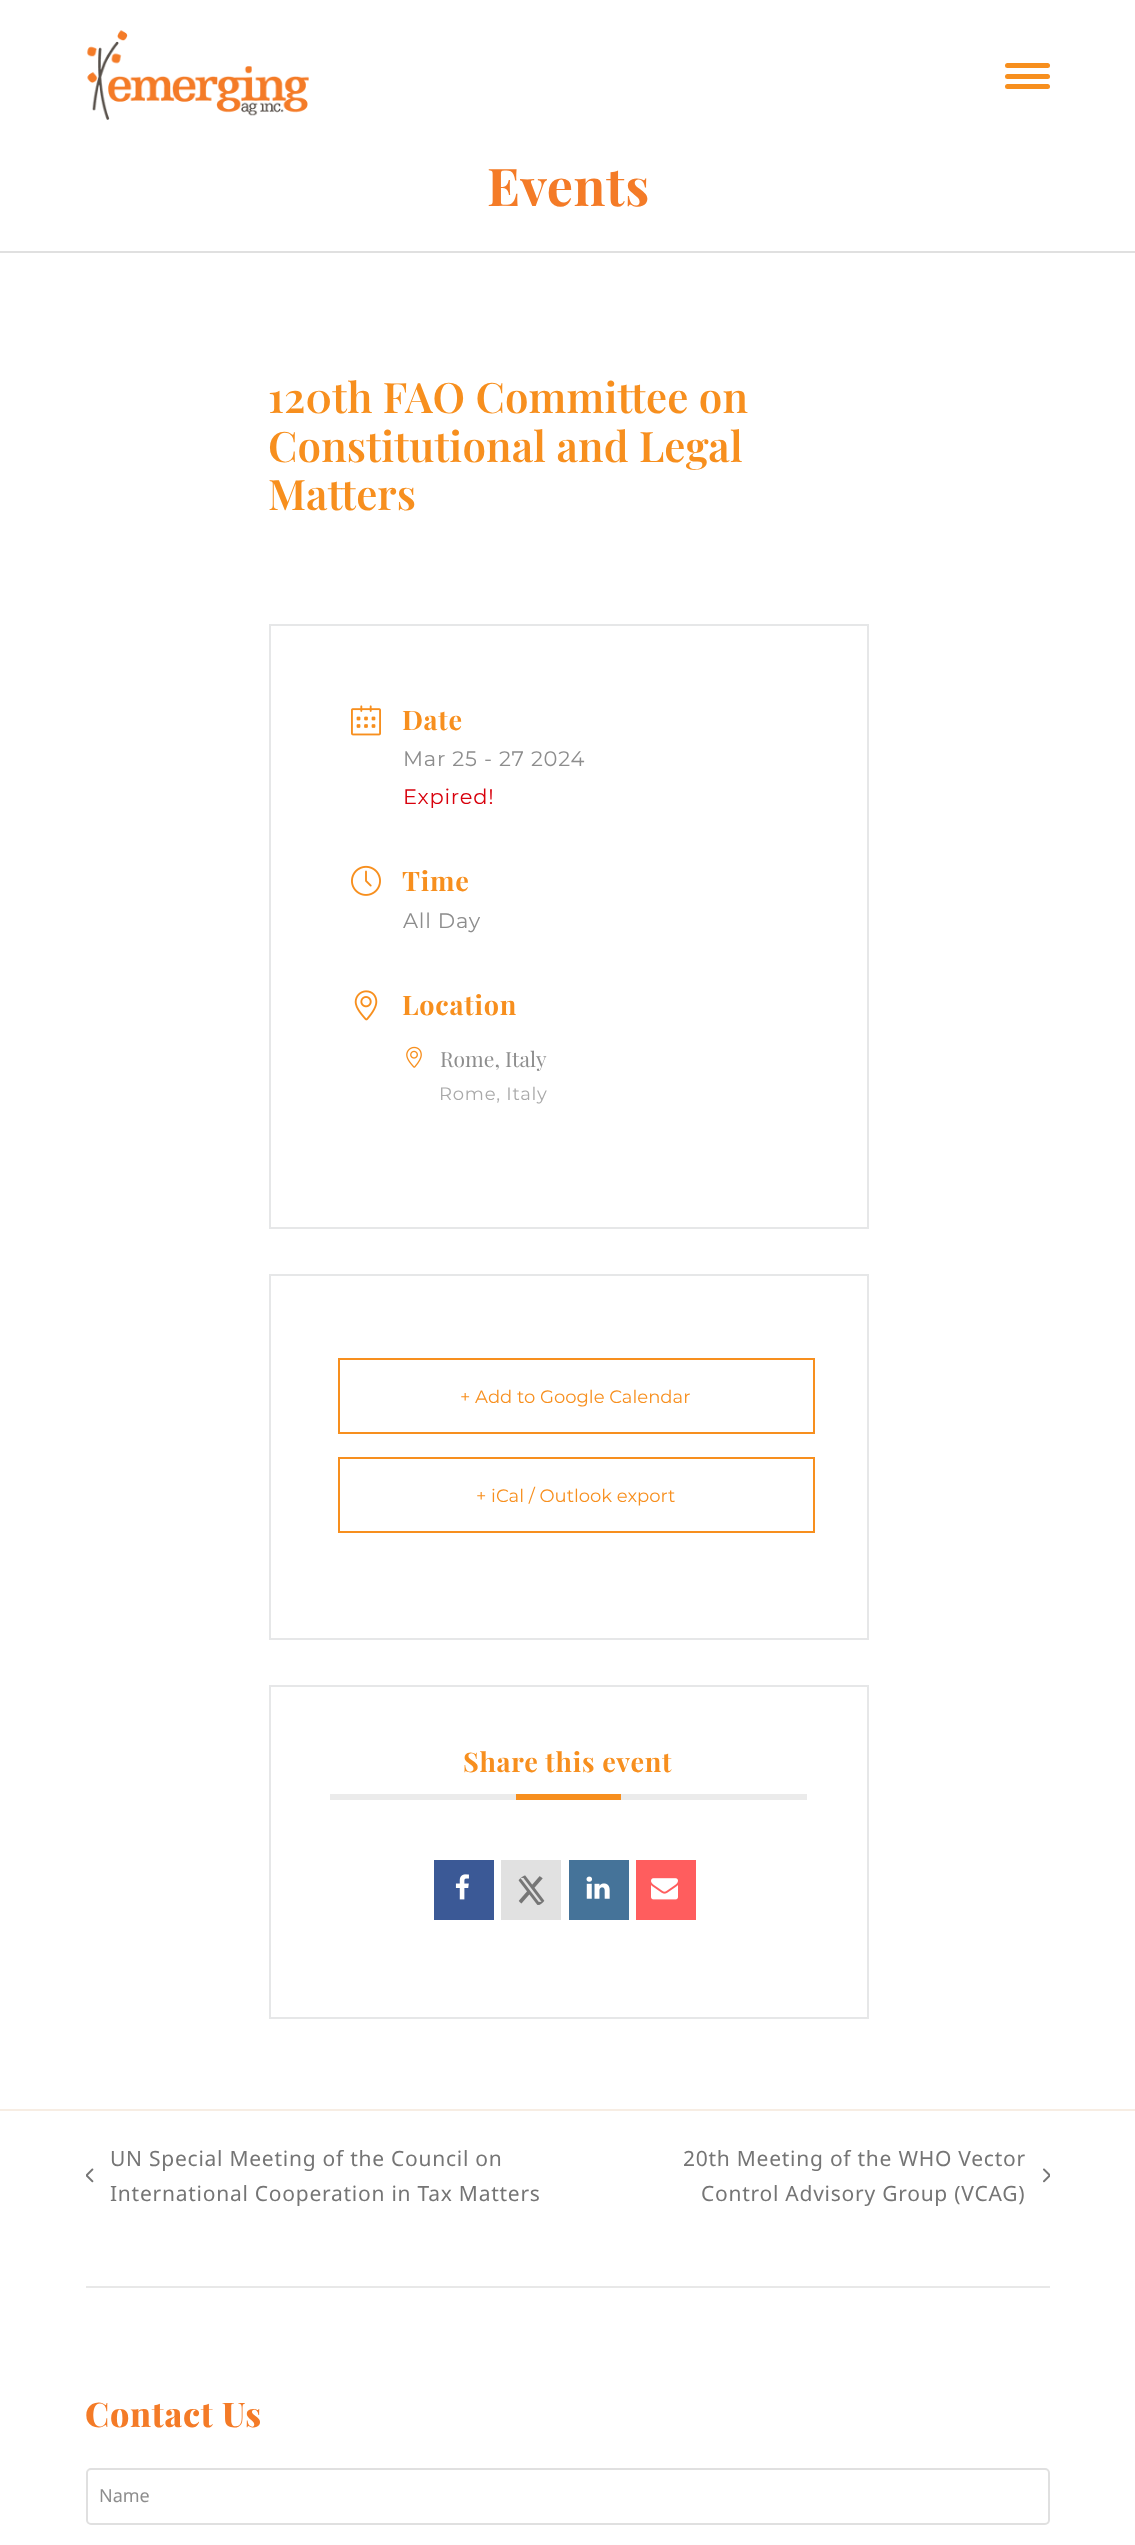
<svg xmlns="http://www.w3.org/2000/svg" xmlns:xlink="http://www.w3.org/1999/xlink" width="1135" height="2545" viewBox="0 0 1135 2545">
<style>
.cls-1{font:bold 52px Playfair Display;letter-spacing:0.75px;fill:#f47b27}
.cls-2{font:600 42px Playfair Display;letter-spacing:0.15px;fill:#f78f1e}
.cls-3{font:bold 27px Playfair Display;letter-spacing:0.75px;fill:#f78f1e}
.cls-4{font:100 21px Montserrat;letter-spacing:0.75px;fill:#8d8d8d}
.cls-5{font:100 21px Montserrat;letter-spacing:0.75px;fill:#d8000c}
.cls-6{font:21px Playfair Display;fill:#8d8d8d}
.cls-7{font:100 18px Montserrat;letter-spacing:0.75px;fill:#a9a9a9}
.cls-8{font:100 18px Montserrat;fill:#f78f1e}
.cls-9{font:21px Noto Sans;letter-spacing:0.75px;fill:#757575}
.cls-10{font:800 34px Playfair Display;letter-spacing:0.75px;fill:#f47b27}
.cls-11{font:18px Noto Sans;fill:#8d8d8d}
</style>
<rect width="100%" height="100%" fill="#ffffff"/>
<image xlink:href="image0.png" x="87" y="30" width="222" height="90"/>
<rect fill="#f78f1e" x="1005" y="74" width="45" height="5" rx="2.5"/>
<rect fill="#f78f1e" x="1005" y="63" width="45" height="5" rx="2.5"/>
<rect fill="#f78f1e" x="1005" y="84" width="45" height="5" rx="2.5"/>
<rect fill="#e0e0e0" x="0" y="251" width="1135" height="2"/>
<rect fill="none" stroke="#e6e7e8" stroke-width="2" x="270" y="625" width="598" height="603"/>
<image xlink:href="image1.png" x="351" y="705" width="30" height="31"/>
<image xlink:href="image2.png" x="351" y="865" width="30" height="31"/>
<image xlink:href="image3.png" x="354" y="990" width="24" height="31"/>
<image xlink:href="image4.png" x="406" y="1046" width="16" height="22"/>
<rect fill="none" stroke="#e6e7e8" stroke-width="2" x="270" y="1275" width="598" height="364"/>
<rect fill="none" stroke="#f78f1e" stroke-width="2" x="339" y="1359" width="475" height="74"/>
<rect fill="none" stroke="#f78f1e" stroke-width="2" x="339" y="1458" width="475" height="74"/>
<rect fill="none" stroke="#e6e7e8" stroke-width="2" x="270" y="1686" width="598" height="332"/>
<rect fill="#ebebeb" x="330" y="1794" width="477" height="6"/>
<rect fill="#f78f1e" x="516" y="1794" width="105" height="6"/>
<rect fill="#3b5996" x="434" y="1860" width="60" height="60"/>
<image xlink:href="image5.png" x="455" y="1874" width="14" height="26"/>
<rect fill="#e1e1e1" x="501" y="1860" width="60" height="60"/>
<image xlink:href="image6.png" x="518" y="1875" width="27" height="30"/>
<rect fill="#457399" x="569" y="1860" width="60" height="60"/>
<image xlink:href="image7.png" x="586" y="1876" width="24" height="23"/>
<rect fill="#ff5d5e" x="636" y="1860" width="60" height="60"/>
<image xlink:href="image8.png" x="651" y="1878" width="27" height="22"/>
<rect fill="#f7ede3" x="0" y="2109" width="1135" height="2"/>
<image xlink:href="image9.png" x="86" y="2168" width="8" height="15"/>
<image xlink:href="image10.png" x="1043" y="2168" width="7" height="15"/>
<rect fill="#e8e8e8" x="86" y="2286" width="964" height="2"/>
<rect fill="none" stroke="#e0e0e0" stroke-width="2" x="87" y="2469" width="962" height="55" rx="4"/>
<text class="cls-1" x="487" y="206">Events</text>
<text class="cls-2"><tspan x="268" y="413">120th FAO Committee on</tspan><tspan x="268" y="462">Constitutional and Legal</tspan><tspan x="268" y="510">Matters</tspan></text>
<text class="cls-3" x="402" y="730">Date</text>
<text class="cls-4" x="403" y="766">Mar 25 - 27 2024</text>
<text class="cls-5" x="403" y="804">Expired!</text>
<text class="cls-3" x="402" y="891">Time</text>
<text class="cls-4" x="403" y="928">All Day</text>
<text class="cls-3" x="402" y="1015">Location</text>
<text class="cls-6" x="440" y="1067">Rome, Italy</text>
<text class="cls-7" x="439" y="1100">Rome, Italy</text>
<text class="cls-8" x="460" y="1403">+ Add to Google Calendar</text>
<text class="cls-8" x="476" y="1502">+ iCal / Outlook export</text>
<text class="cls-3" x="463" y="1772">Share this event</text>
<text class="cls-9"><tspan x="110" y="2166">UN Special Meeting of the Council on</tspan><tspan x="110" y="2201">International Cooperation in Tax Matters</tspan></text>
<text class="cls-9" x="683" y="2166">20th Meeting of the WHO Vector</text>
<text class="cls-9" x="701" y="2201">Control Advisory Group (VCAG)</text>
<text class="cls-10" x="85" y="2427">Contact Us</text>
<text class="cls-11" x="99" y="2502">Name</text>
</svg>
